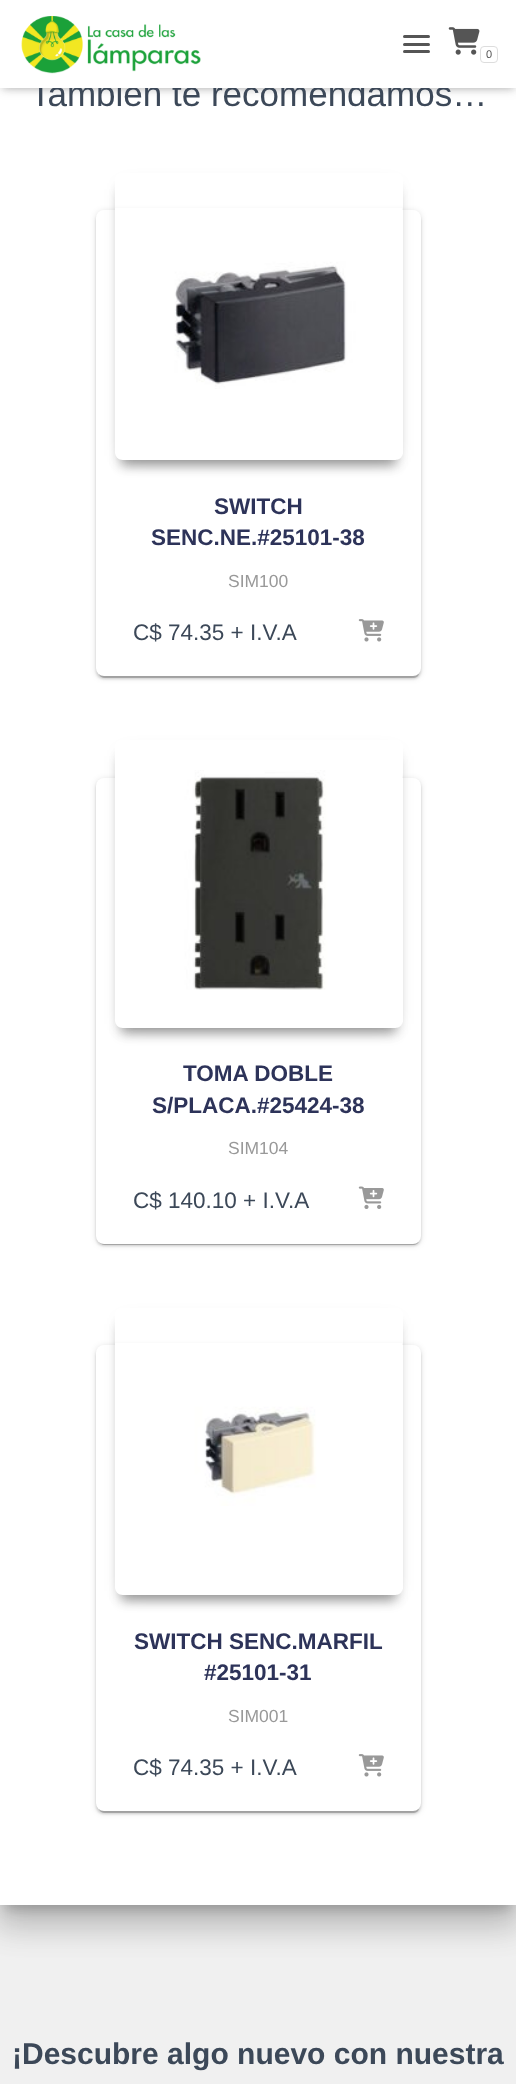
<svg xmlns="http://www.w3.org/2000/svg" xmlns:xlink="http://www.w3.org/1999/xlink" width="516" height="2084" viewBox="0 0 516 2084">
<style>
.cls-1{font:35px Liberation Sans;fill:#3c4858}
.cls-2{font:11px Liberation Sans;fill:#555555}
.cls-3{font:bold 22.5px Liberation Sans;fill:#2d3359}
.cls-4{font:17.5px Liberation Sans;fill:#999999}
.cls-5{font:22.5px Liberation Sans;fill:#3c4858}
.cls-6{font:bold 30px Liberation Sans;fill:#3c4858}
</style>
<defs>
<clipPath id="clip1"><path d="M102 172H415V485H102ZM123 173H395C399.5 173 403 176.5 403 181V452C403 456.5 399.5 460 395 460H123C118.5 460 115 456.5 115 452V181C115 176.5 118.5 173 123 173Z" clip-rule="evenodd"/></clipPath>
<clipPath id="clip2"><path d="M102 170H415V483H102ZM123 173H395C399.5 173 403 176.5 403 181V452C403 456.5 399.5 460 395 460H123C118.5 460 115 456.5 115 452V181C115 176.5 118.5 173 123 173Z" clip-rule="evenodd"/></clipPath>
<clipPath id="clip3"><path d="M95 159H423V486H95ZM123 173H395C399.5 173 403 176.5 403 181V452C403 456.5 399.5 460 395 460H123C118.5 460 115 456.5 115 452V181C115 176.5 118.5 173 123 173Z" clip-rule="evenodd"/></clipPath>
<clipPath id="clip4"><path d="M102 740H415V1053H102ZM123 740H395C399.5 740 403 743.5 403 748V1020C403 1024.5 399.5 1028 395 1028H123C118.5 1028 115 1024.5 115 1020V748C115 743.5 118.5 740 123 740Z" clip-rule="evenodd"/></clipPath>
<clipPath id="clip5"><path d="M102 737H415V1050H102ZM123 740H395C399.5 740 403 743.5 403 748V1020C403 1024.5 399.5 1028 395 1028H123C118.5 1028 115 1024.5 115 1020V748C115 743.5 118.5 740 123 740Z" clip-rule="evenodd"/></clipPath>
<clipPath id="clip6"><path d="M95 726H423V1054H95ZM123 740H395C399.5 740 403 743.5 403 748V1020C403 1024.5 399.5 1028 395 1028H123C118.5 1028 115 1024.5 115 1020V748C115 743.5 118.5 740 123 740Z" clip-rule="evenodd"/></clipPath>
<clipPath id="clip7"><path d="M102 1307H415V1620H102ZM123 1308H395C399.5 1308 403 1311.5 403 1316V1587C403 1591.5 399.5 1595 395 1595H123C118.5 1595 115 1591.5 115 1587V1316C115 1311.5 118.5 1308 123 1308Z" clip-rule="evenodd"/></clipPath>
<clipPath id="clip8"><path d="M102 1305H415V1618H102ZM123 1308H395C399.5 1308 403 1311.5 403 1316V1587C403 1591.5 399.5 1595 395 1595H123C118.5 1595 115 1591.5 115 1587V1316C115 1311.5 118.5 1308 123 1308Z" clip-rule="evenodd"/></clipPath>
<clipPath id="clip9"><path d="M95 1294H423V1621H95ZM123 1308H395C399.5 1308 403 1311.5 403 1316V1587C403 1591.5 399.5 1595 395 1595H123C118.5 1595 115 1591.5 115 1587V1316C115 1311.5 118.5 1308 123 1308Z" clip-rule="evenodd"/></clipPath>
</defs>
<rect width="100%" height="100%" fill="#f0f0f0"/>
<rect fill="#000000" fill-opacity="0.2" filter="blur(6px)" x="6" y="-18" width="504" height="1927"/>
<rect fill="#000000" fill-opacity="0.12" filter="blur(19px)" x="-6" y="-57" width="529" height="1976"/>
<rect fill="#000000" fill-opacity="0.14" filter="blur(15px)" x="-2" y="-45" width="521" height="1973"/>
<rect fill="#ffffff" x="0" y="88" width="516" height="1817"/>
<rect fill="#000000" fill-opacity="0.1" filter="blur(3px)" x="3" y="8" width="511" height="82"/>
<rect fill="#000000" fill-opacity="0.12" filter="blur(6px)" x="0" y="1" width="516" height="88"/>
<rect fill="#000000" fill-opacity="0.42" filter="blur(6px)" x="8" y="9" width="501" height="72"/>
<rect fill="#000000" fill-opacity="0.12" filter="blur(3px)" x="96" y="211" width="325" height="467" rx="8"/>
<rect fill="#000000" fill-opacity="0.2" filter="blur(0.5px)" x="99" y="216" width="320" height="462" rx="5"/>
<rect fill="#000000" fill-opacity="0.14" filter="blur(1px)" x="96" y="213" width="325" height="466" rx="8"/>
<rect fill="#ffffff" x="96" y="210" width="325" height="466" rx="8"/>
<g clip-path="url(#clip1)">
<rect fill="#000000" fill-opacity="0.2" filter="blur(6px)" x="121" y="191" width="275" height="275" rx="1"/>
</g>
<g clip-path="url(#clip2)">
<rect fill="#000000" fill-opacity="0.2" filter="blur(6px)" x="121" y="189" width="275" height="275" rx="1"/>
</g>
<g clip-path="url(#clip3)">
<rect fill="#000000" fill-opacity="0.24" filter="blur(9.5px)" x="125" y="189" width="268" height="267"/>
</g>
<image xlink:href="image2.png" x="115" y="208" width="288" height="181"/>
<image xlink:href="image3.png" x="358" y="619" width="26" height="23"/>
<rect fill="#000000" fill-opacity="0.12" filter="blur(3px)" x="96" y="779" width="325" height="466" rx="8"/>
<rect fill="#000000" fill-opacity="0.2" filter="blur(0.5px)" x="99" y="784" width="320" height="461" rx="5"/>
<rect fill="#000000" fill-opacity="0.14" filter="blur(1px)" x="96" y="780" width="325" height="466" rx="8"/>
<rect fill="#ffffff" x="96" y="778" width="325" height="466" rx="8"/>
<g clip-path="url(#clip4)">
<rect fill="#000000" fill-opacity="0.2" filter="blur(6px)" x="121" y="759" width="275" height="275" rx="1"/>
</g>
<g clip-path="url(#clip5)">
<rect fill="#000000" fill-opacity="0.2" filter="blur(6px)" x="121" y="756" width="275" height="275" rx="1"/>
</g>
<g clip-path="url(#clip6)">
<rect fill="#000000" fill-opacity="0.24" filter="blur(9.5px)" x="125" y="756" width="268" height="268"/>
</g>
<image xlink:href="image4.png" x="115" y="770" width="288" height="220"/>
<image xlink:href="image5.png" x="358" y="1186" width="26" height="23"/>
<rect fill="#000000" fill-opacity="0.12" filter="blur(3px)" x="96" y="1346" width="325" height="467" rx="8"/>
<rect fill="#000000" fill-opacity="0.2" filter="blur(0.5px)" x="99" y="1351" width="320" height="462" rx="5"/>
<rect fill="#000000" fill-opacity="0.14" filter="blur(1px)" x="96" y="1348" width="325" height="466" rx="8"/>
<rect fill="#ffffff" x="96" y="1345" width="325" height="466" rx="8"/>
<g clip-path="url(#clip7)">
<rect fill="#000000" fill-opacity="0.2" filter="blur(6px)" x="121" y="1326" width="275" height="275" rx="1"/>
</g>
<g clip-path="url(#clip8)">
<rect fill="#000000" fill-opacity="0.2" filter="blur(6px)" x="121" y="1324" width="275" height="275" rx="1"/>
</g>
<g clip-path="url(#clip9)">
<rect fill="#000000" fill-opacity="0.24" filter="blur(9.5px)" x="125" y="1324" width="268" height="267"/>
</g>
<image xlink:href="image6.png" x="115" y="1343" width="288" height="163"/>
<image xlink:href="image3.png" x="358" y="1754" width="26" height="23"/>
<text class="cls-1" x="30" y="106">También te recomendamos…</text>
<rect fill="#ffffff" x="0" y="0" width="516" height="88"/>
<rect fill="none" stroke="#dddddd" x="480.5" y="46.5" width="17" height="16" rx="3.5"/>
<text class="cls-2" x="486" y="58">0</text>
<image xlink:href="image1.png" x="448" y="27" width="32" height="28"/>
<rect fill="#555555" x="403" y="50" width="27" height="3" rx="1.5"/>
<rect fill="#555555" x="403" y="43" width="27" height="3" rx="1.5"/>
<rect fill="#555555" x="403" y="35" width="27" height="3" rx="1.5"/>
<image xlink:href="image0.png" x="21" y="16" width="180" height="58"/>
<text class="cls-3" x="214" y="514">SWITCH</text>
<text class="cls-3" x="151" y="545">SENC.NE.#25101-38</text>
<text class="cls-4" x="228" y="587">SIM100</text>
<text class="cls-5" x="133" y="640">C$ 74.35 + I.V.A</text>
<text class="cls-3" x="183" y="1081">TOMA DOBLE</text>
<text class="cls-3" x="152" y="1113">S/PLACA.#25424-38</text>
<text class="cls-4" x="228" y="1154">SIM104</text>
<text class="cls-5" x="133" y="1208">C$ 140.10 + I.V.A</text>
<text class="cls-3" x="134" y="1649">SWITCH SENC.MARFIL</text>
<text class="cls-3" x="204" y="1680">#25101-31</text>
<text class="cls-4" x="228" y="1722">SIM001</text>
<text class="cls-5" x="133" y="1775">C$ 74.35 + I.V.A</text>
<text class="cls-6" x="12" y="2064">¡Descubre algo nuevo con nuestra</text>
</svg>
